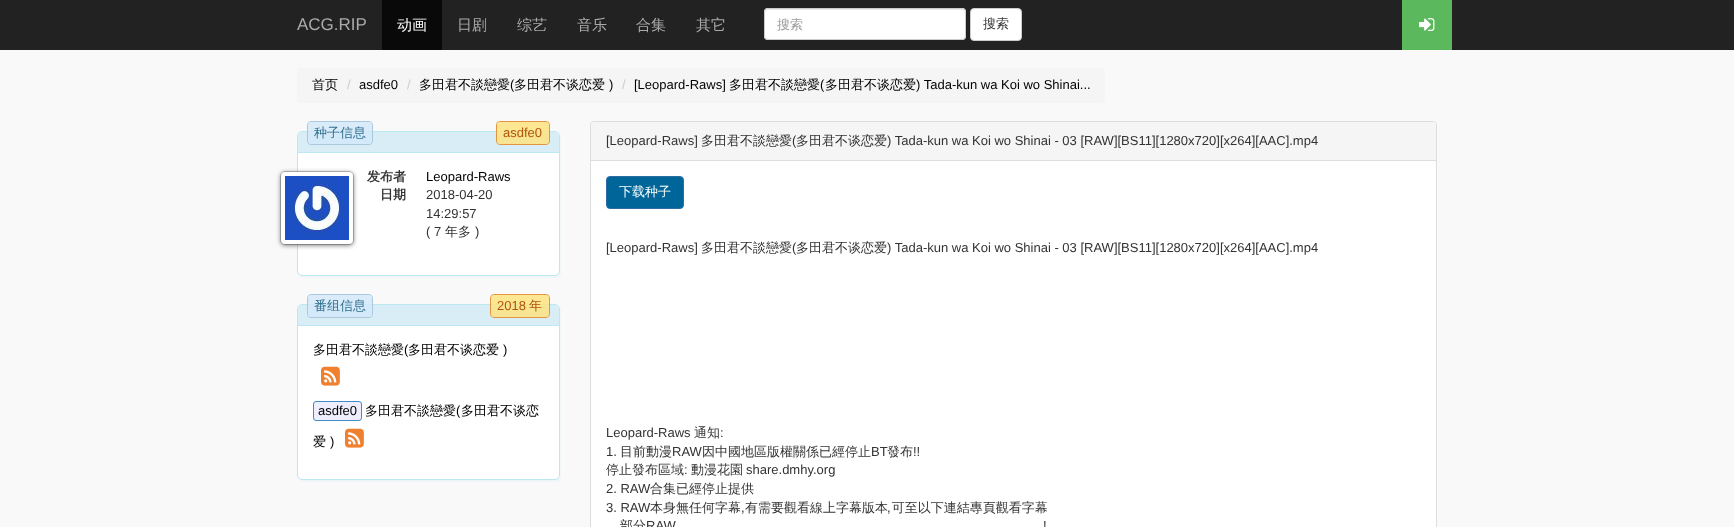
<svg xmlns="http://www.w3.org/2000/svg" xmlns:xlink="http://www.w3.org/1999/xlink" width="1734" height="527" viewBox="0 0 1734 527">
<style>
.cls-1{font:17px Liberation Sans;fill:#aaaaaa}
.cls-2{font:500 15px WenQuanYi Zen Hei;fill:#ffffff}
.cls-3{font:500 15px WenQuanYi Zen Hei;fill:#aaaaaa}
.cls-4{font:500 13px WenQuanYi Zen Hei;fill:#999999}
.cls-5{font:500 13px WenQuanYi Zen Hei;fill:#333333}
.cls-6{font:500 13px WenQuanYi Zen Hei;fill:#000000}
.cls-7{font:13px Liberation Sans;fill:#cccccc}
.cls-8{font:13px Liberation Sans;fill:#000000}
.cls-9{font:500 13px WenQuanYi Zen Hei;fill:#31708f}
.cls-10{font:13px Liberation Sans;fill:#b25509}
.cls-11{font:bold 13px WenQuanYi Zen Hei;fill:#333333}
.cls-12{font:13px Liberation Sans;fill:#333333}
.cls-13{font:500 13px WenQuanYi Zen Hei;fill:#b25509}
.cls-14{font:500 13px WenQuanYi Zen Hei;fill:#ffffff}
</style>
<rect width="100%" height="100%" fill="#f9f9f9"/>
<rect fill="#222222" x="0" y="0" width="1734" height="50"/>
<rect fill="#090909" x="382" y="0" width="60" height="50"/>
<rect fill="#ffffff" x="764" y="8" width="202" height="32" rx="4"/>
<path fill="#ececec" d="M768 10H962C964 10 965 11 965 13C965 11 964 9 962 9H768C766 9 765 11 765 13C765 11 766 10 768 10Z"/>
<rect fill="none" stroke="#cccccc" x="764.5" y="8.5" width="201" height="31" rx="3.5"/>
<rect fill="#ffffff" stroke="#cccccc" x="970.5" y="8.5" width="51" height="32" rx="3.5"/>
<rect fill="#5cb85c" x="1402" y="0" width="50" height="50"/>
<image xlink:href="image0.png" x="1419" y="18" width="16" height="13"/>
<rect fill="#f5f5f5" x="297" y="68" width="808" height="35" rx="4"/>
<path fill="#f0f6f8" d="M298 274C299 276 301 278 303 278H556C559 278 561 276 561 273V138C561 137 561 136 560 135V271C560 274 558 276 555 276H302C300 276 299 275 298 274Z"/>
<rect fill="#ffffff" stroke="#bce8f1" x="297.5" y="131.5" width="262" height="144" rx="4.5"/>
<path fill="#d9edf7" d="M302 132H555C557 132 559 134 559 136V153H298V136C298 134 300 132 302 132Z"/>
<rect fill="#bce8f1" x="298" y="152" width="261" height="1"/>
<rect fill="none" stroke="#aac8de" x="307.5" y="121.5" width="65" height="23" rx="3.5"/>
<rect fill="#d2e7f9" fill-opacity="0.8" x="308" y="122" width="64" height="22" rx="3"/>
<rect fill="none" stroke="#e3953f" x="496.5" y="121.5" width="53" height="23" rx="3.5"/>
<rect fill="#ffe279" fill-opacity="0.8" x="497" y="122" width="52" height="22" rx="3"/>
<rect fill="#666666" filter="blur(2.5px)" x="281" y="173" width="72" height="72" rx="4"/>
<rect fill="none" stroke="#000000" stroke-opacity="0.2" x="280.5" y="171.5" width="73" height="73" rx="4.5"/>
<rect fill="#ffffff" x="281" y="172" width="72" height="72" rx="4"/>
<image xlink:href="image1.png" x="285" y="176" width="64" height="64"/>
<path fill="#f0f6f8" d="M298 478C299 480 301 482 303 482H556C559 482 561 480 561 477V311C561 310 561 309 560 308V475C560 478 558 480 555 480H302C300 480 299 479 298 478Z"/>
<rect fill="#ffffff" stroke="#bce8f1" x="297.5" y="304.5" width="262" height="175" rx="4.5"/>
<path fill="#d9edf7" d="M302 305H555C557 305 559 307 559 309V326H298V309C298 307 300 305 302 305Z"/>
<rect fill="#bce8f1" x="298" y="325" width="261" height="1"/>
<rect fill="none" stroke="#aac8de" x="307.5" y="294.5" width="65" height="23" rx="3.5"/>
<rect fill="#d2e7f9" fill-opacity="0.8" x="308" y="295" width="64" height="22" rx="3"/>
<rect fill="none" stroke="#e3953f" x="490.5" y="294.5" width="59" height="23" rx="3.5"/>
<rect fill="#ffe279" fill-opacity="0.8" x="491" y="295" width="58" height="22" rx="3"/>
<image xlink:href="image2.png" x="321" y="366" width="19" height="20"/>
<rect fill="#eeeeff" stroke="#428bca" x="313.5" y="401.5" width="48" height="19" rx="2.5"/>
<image xlink:href="image2.png" x="345" y="428" width="19" height="20"/>
<rect fill="#ffffff" stroke="#dddddd" x="590.5" y="121.5" width="846" height="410" rx="3.5"/>
<path fill="#f5f5f5" d="M594 122H1433C1434.5 122 1436 123.5 1436 125V161H591V125C591 123.5 592.5 122 594 122Z"/>
<rect fill="#dddddd" x="591" y="160" width="845" height="1"/>
<rect fill="#006699" stroke="#2e6da4" x="606.5" y="176.5" width="77" height="32" rx="3.5"/>
<text class="cls-1" x="297" y="30">ACG.RIP</text>
<text class="cls-2" x="397" y="30">动画</text>
<text class="cls-3" x="457" y="30">日剧</text>
<text class="cls-3" x="517" y="30">综艺</text>
<text class="cls-3" x="577" y="30">音乐</text>
<text class="cls-3" x="636" y="30">合集</text>
<text class="cls-3" x="696" y="30">其它</text>
<text class="cls-4" x="777" y="29">搜索</text>
<text class="cls-5" x="983" y="28">搜索</text>
<text class="cls-6" x="312" y="89">首页</text>
<text class="cls-7" x="347" y="89">/</text>
<text class="cls-8" x="359" y="89">asdfe0</text>
<text class="cls-7" x="407" y="89">/</text>
<text class="cls-6" x="419" y="89">多田君不談戀愛</text>
<text class="cls-8" x="510" y="89">(</text>
<text class="cls-6" x="514" y="89">多田君不谈恋爱</text>
<text class="cls-8" x="609" y="89">)</text>
<text class="cls-7" x="622" y="89">/</text>
<text class="cls-8" x="634" y="89">[Leopard-Raws]</text>
<text class="cls-6" x="729" y="89">多田君不談戀愛</text>
<text class="cls-8" x="820" y="89">(</text>
<text class="cls-6" x="825" y="89">多田君不谈恋爱</text>
<text class="cls-8" x="916" y="89">) Tada-kun wa Koi wo Shinai...</text>
<text class="cls-9" x="314" y="137">种子信息</text>
<text class="cls-10" x="503" y="137">asdfe0</text>
<text class="cls-11" x="367" y="181">发布者</text>
<text class="cls-8" x="426" y="181">Leopard-Raws</text>
<text class="cls-11" x="380" y="199">日期</text>
<text class="cls-12"><tspan x="426" y="199">2018-04-20</tspan><tspan x="426" y="218">14:29:57</tspan><tspan x="426" y="236">( 7</tspan></text>
<text class="cls-5" x="445" y="236">年多</text>
<text class="cls-12" x="475" y="236">)</text>
<text class="cls-9" x="314" y="310">番组信息</text>
<text class="cls-10" x="497" y="310">2018</text>
<text class="cls-13" x="529" y="310">年</text>
<text class="cls-6" x="313" y="354">多田君不談戀愛</text>
<text class="cls-8" x="404" y="354">(</text>
<text class="cls-6" x="408" y="354">多田君不谈恋爱</text>
<text class="cls-8" x="503" y="354">)</text>
<text class="cls-8" x="318" y="415">asdfe0</text>
<text class="cls-6" x="365" y="415">多田君不談戀愛</text>
<text class="cls-8" x="456" y="415">(</text>
<text class="cls-6" x="461" y="415">多田君不谈恋</text>
<text class="cls-6" x="313" y="446">爱</text>
<text class="cls-8" x="330" y="446">)</text>
<text class="cls-12" x="606" y="145">[Leopard-Raws]</text>
<text class="cls-5" x="701" y="145">多田君不談戀愛</text>
<text class="cls-12" x="792" y="145">(</text>
<text class="cls-5" x="796" y="145">多田君不谈恋爱</text>
<text class="cls-12" x="887" y="145">) Tada-kun wa Koi wo Shinai - 03 [RAW][BS11][1280x720][x264][AAC].mp4</text>
<text class="cls-14" x="619" y="196">下载种子</text>
<text class="cls-12" x="606" y="252">[Leopard-Raws]</text>
<text class="cls-5" x="701" y="252">多田君不談戀愛</text>
<text class="cls-12" x="792" y="252">(</text>
<text class="cls-5" x="796" y="252">多田君不谈恋爱</text>
<text class="cls-12" x="887" y="252">) Tada-kun wa Koi wo Shinai - 03 [RAW][BS11][1280x720][x264][AAC].mp4</text>
<text class="cls-12" x="606" y="437">Leopard-Raws</text>
<text class="cls-5" x="694" y="437">通知</text>
<text class="cls-12" x="720" y="437">:</text>
<text class="cls-12" x="606" y="456">1.</text>
<text class="cls-5" x="620" y="456">目前動漫</text>
<text class="cls-12" x="672" y="456">RAW</text>
<text class="cls-5" x="702" y="456">因中國地區版權關係已經停止</text>
<text class="cls-12" x="871" y="456">BT</text>
<text class="cls-5" x="887" y="456">發布</text>
<text class="cls-12" x="913" y="456">!!</text>
<text class="cls-5" x="606" y="474">停止發布區域</text>
<text class="cls-12" x="684" y="474">:</text>
<text class="cls-5" x="691" y="474">動漫花園</text>
<text class="cls-12" x="746" y="474">share.dmhy.org</text>
<text class="cls-12" x="606" y="493">2. RAW</text>
<text class="cls-5" x="650" y="493">合集已經停止提供</text>
<text class="cls-12" x="606" y="512">3. RAW</text>
<text class="cls-5" x="650" y="512">本身無任何字幕 有需要觀看線上字幕版本 可至以下連結專頁觀看字幕</text>
<text class="cls-12" x="741" y="512">,</text>
<text class="cls-12" x="887" y="512">,</text>
<text class="cls-5" x="620" y="530">部分</text>
<text class="cls-12" x="646" y="530">RAW</text>
<text class="cls-12" x="1043" y="530">!</text>
</svg>
